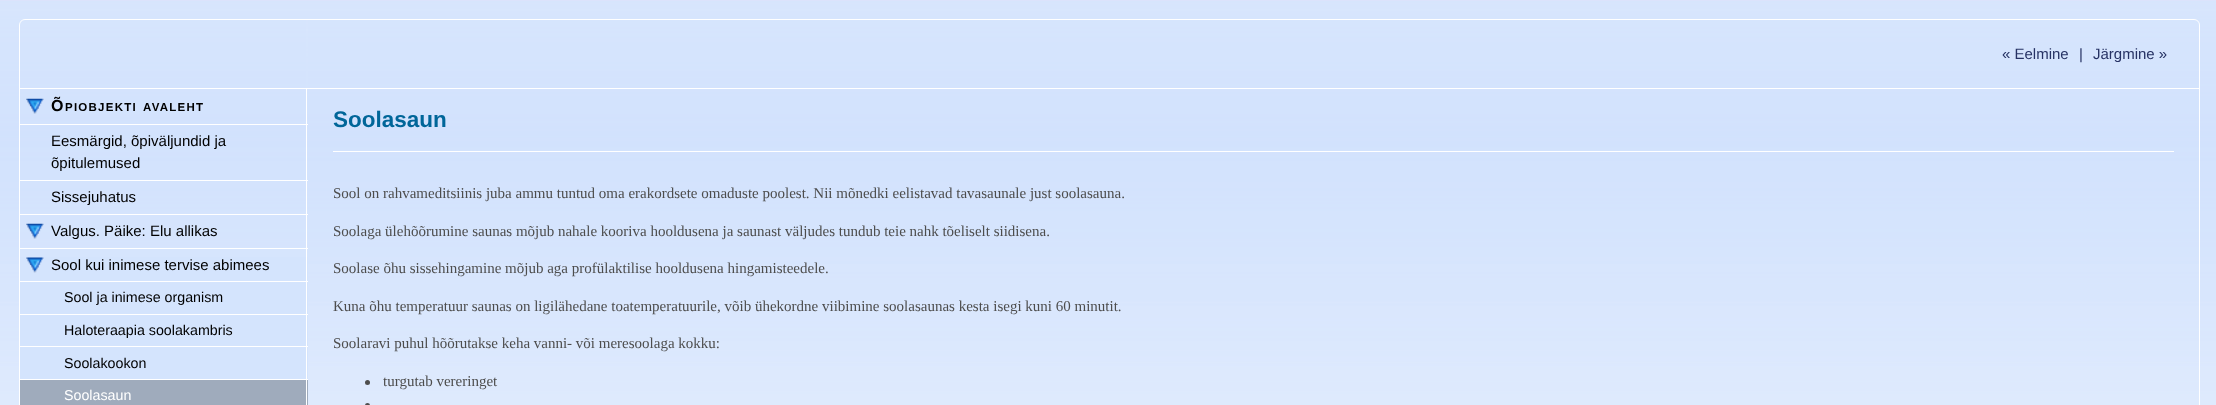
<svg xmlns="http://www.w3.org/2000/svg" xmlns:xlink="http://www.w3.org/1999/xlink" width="2216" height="405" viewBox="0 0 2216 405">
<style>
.cls-1{font:15px Liberation Sans;fill:#263264}
.cls-2{font:bold 16px Liberation Sans;letter-spacing:1.25px;fill:#000000}
.cls-3{font:bold 11.5px Liberation Sans;letter-spacing:1.25px;fill:#000000}
.cls-4{font:15px Liberation Sans;fill:#000000}
.cls-5{font:14.25px Liberation Sans;fill:#000000}
.cls-6{font:14.25px Liberation Sans;fill:#ffffff}
.cls-7{font:bold 22.5px Liberation Sans;fill:#006699}
.cls-8{font:15px Liberation Serif;fill:#4d4d4d}
</style>
<rect width="100%" height="100%" fill="#dce3fc"/>
<image xlink:href="image0.png" x="0" y="1" width="2216" height="404"/>
<rect fill="none" stroke="#ffffff" x="19.5" y="19.5" width="2180" height="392" rx="5.5"/>
<image xlink:href="image1.png" x="306" y="20" width="2" height="68"/>
<rect fill="#ffffff" x="20" y="88" width="2179" height="1"/>
<image xlink:href="image2.png" x="26" y="98" width="18" height="16"/>
<rect fill="#ffffff" x="306" y="89" width="1" height="160"/>
<rect fill="#ffffff" x="20" y="124" width="288" height="1"/>
<rect fill="#ffffff" x="20" y="180" width="288" height="1"/>
<rect fill="#ffffff" x="20" y="214" width="288" height="1"/>
<image xlink:href="image2.png" x="26" y="223" width="18" height="16"/>
<rect fill="#ffffff" x="20" y="248" width="288" height="1"/>
<rect fill="#d4e4fd" x="20" y="257" width="288" height="57"/>
<image xlink:href="image3.png" x="26" y="257" width="18" height="16"/>
<rect fill="#ffffff" x="306" y="249" width="1" height="66"/>
<rect fill="#ffffff" x="20" y="281" width="288" height="1"/>
<rect fill="#ffffff" x="20" y="314" width="288" height="1"/>
<rect fill="#d4e4fd" x="20" y="315" width="288" height="64"/>
<rect fill="#ffffff" x="306" y="315" width="1" height="65"/>
<rect fill="#ffffff" x="20" y="346" width="288" height="1"/>
<rect fill="#ffffff" x="20" y="379" width="288" height="1"/>
<rect fill="#9fabbc" x="20" y="380" width="288" height="25"/>
<rect fill="#ffffff" x="306" y="380" width="1" height="25"/>
<rect fill="#ffffff" x="333" y="151" width="1841" height="1"/>
<circle fill="#4d4d4d" cx="367.5" cy="382.5" r="2.5"/>
<circle fill="#4d4d4d" cx="367.5" cy="405.5" r="2.5"/>
<text class="cls-1" x="2002" y="59">« Eelmine</text>
<text class="cls-1" x="2079" y="59">|</text>
<text class="cls-1" x="2093" y="59">Järgmine »</text>
<text class="cls-2" x="51" y="111">Õ</text>
<text class="cls-3" x="65" y="111">PIOBJEKTI</text>
<text class="cls-3" x="143" y="111">AVALEHT</text>
<text class="cls-4"><tspan x="51" y="146">Eesmärgid, õpiväljundid ja</tspan><tspan x="51" y="168">õpitulemused</tspan></text>
<text class="cls-4" x="51" y="202">Sissejuhatus</text>
<text class="cls-4" x="51" y="236">Valgus. Päike: Elu allikas</text>
<text class="cls-4" x="51" y="270">Sool kui inimese tervise abimees</text>
<text class="cls-5" x="64" y="302">Sool ja inimese organism</text>
<text class="cls-5" x="64" y="335">Haloteraapia soolakambris</text>
<text class="cls-5" x="64" y="368">Soolakookon</text>
<text class="cls-6" x="64" y="400">Soolasaun</text>
<text class="cls-7" x="333" y="127">Soolasaun</text>
<text class="cls-8" x="333" y="198">Sool on rahvameditsiinis juba ammu tuntud oma erakordsete omaduste poolest. Nii mõnedki eelistavad tavasaunale just soolasauna.</text>
<text class="cls-8" x="333" y="236">Soolaga ülehõõrumine saunas mõjub nahale kooriva hooldusena ja saunast väljudes tundub teie nahk tõeliselt siidisena.</text>
<text class="cls-8" x="333" y="273">Soolase õhu sissehingamine mõjub aga profülaktilise hooldusena hingamisteedele.</text>
<text class="cls-8" x="333" y="311">Kuna õhu temperatuur saunas on ligilähedane toatemperatuurile, võib ühekordne viibimine soolasaunas kesta isegi kuni 60 minutit.</text>
<text class="cls-8" x="333" y="348">Soolaravi puhul hõõrutakse keha vanni- või meresoolaga kokku:</text>
<text class="cls-8" x="383" y="386">turgutab vereringet</text>
</svg>
